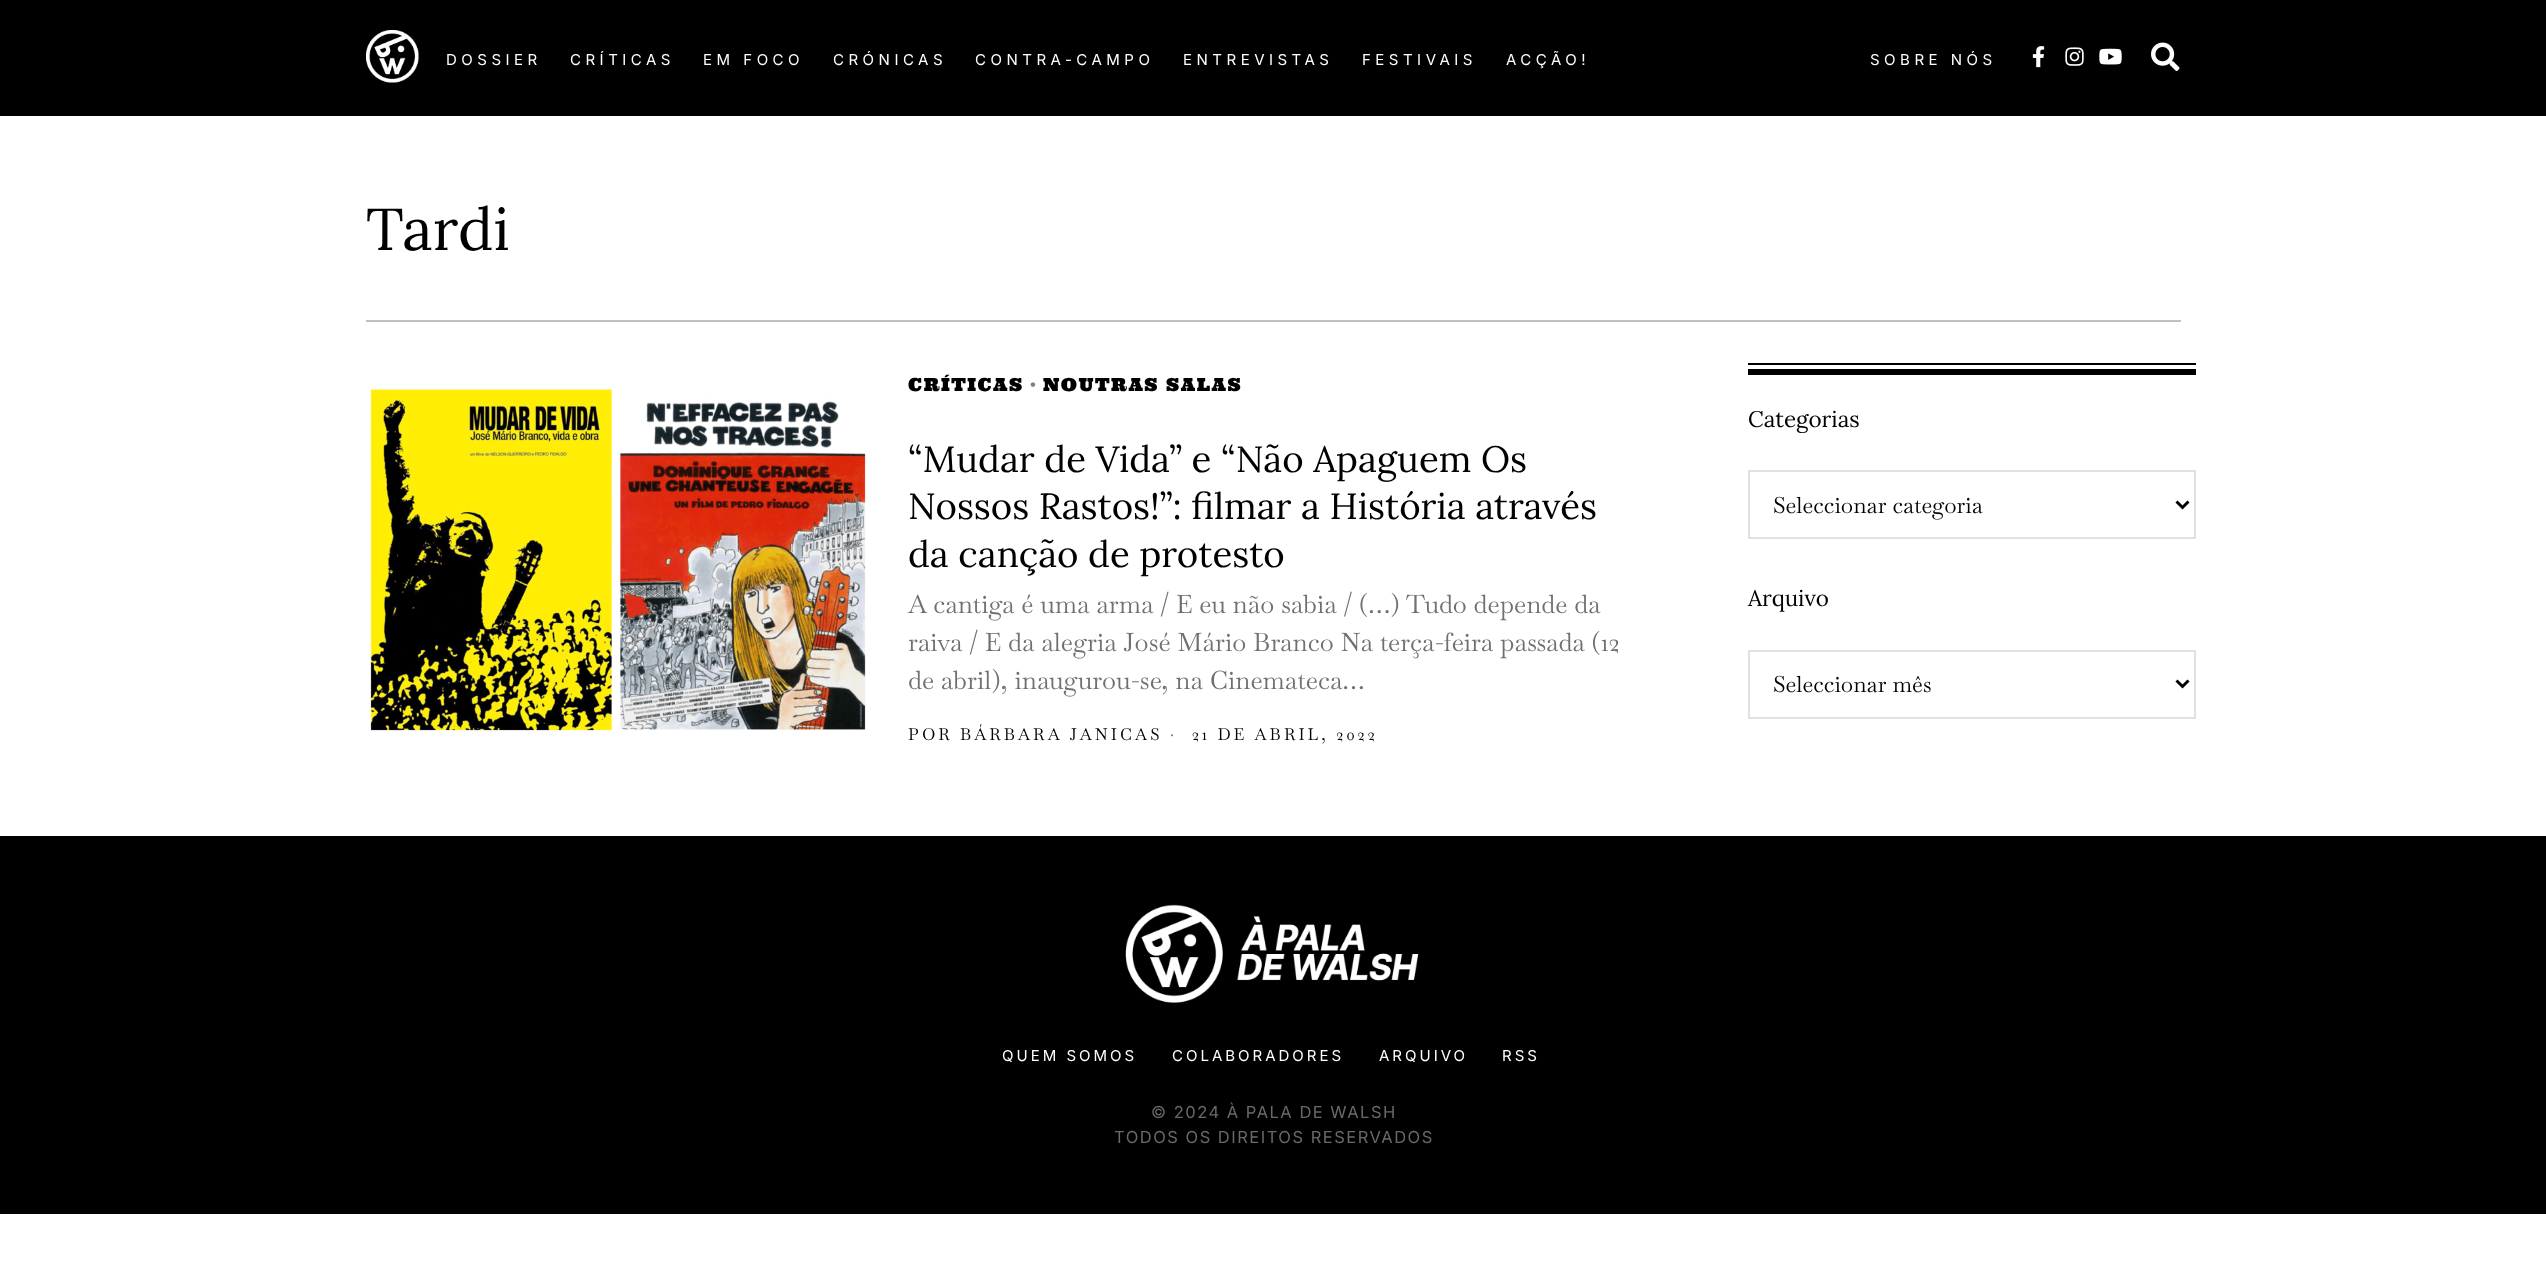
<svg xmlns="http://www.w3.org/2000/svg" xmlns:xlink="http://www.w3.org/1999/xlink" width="2546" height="1275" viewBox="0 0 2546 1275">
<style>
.cls-1{font:15px Inter;letter-spacing:4.5px;fill:#ffffff}
.cls-2{font:59px Lora;fill:#000000}
.cls-3{font:18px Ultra;letter-spacing:1.5px;fill:#000000}
.cls-4{font:18px Ultra;letter-spacing:1.5px;fill:#808080}
.cls-5{font:36.6px Lora;fill:#000000}
.cls-6{font:25.5px Baskervville;fill:#707070}
.cls-7{font:16.5px Baskervville;letter-spacing:3px;fill:#000000}
.cls-8{font:16.5px Baskervville;letter-spacing:3px;fill:#808080}
.cls-9{font:22.5px Lora;fill:#000000}
.cls-10{font:22.5px Baskervville;fill:#000000}
.cls-11{font:15px Inter;letter-spacing:3px;fill:#ffffff}
.cls-12{font:16.5px Inter;letter-spacing:1.5px;fill:#696969}
</style>
<rect width="100%" height="100%" fill="#ffffff"/>
<rect fill="#000000" x="0" y="0" width="2546" height="116"/>
<image xlink:href="image0.png" x="366" y="30" width="53" height="53"/>
<image xlink:href="image1.png" x="2032" y="46" width="13" height="22"/>
<image xlink:href="image2.png" x="2065" y="47" width="19" height="19"/>
<image xlink:href="image3.png" x="2099" y="48" width="23" height="17"/>
<image xlink:href="image4.png" x="2151" y="42" width="29" height="29"/>
<rect fill="#c0c0c0" x="366" y="320" width="1815" height="2"/>
<image xlink:href="image5.png" x="370" y="389" width="496" height="342"/>
<rect fill="#000000" x="1748" y="369" width="448" height="6"/>
<rect fill="#000000" x="1748" y="363" width="448" height="2"/>
<rect fill="none" stroke="#e1e1e1" stroke-width="2" x="1749" y="471" width="446" height="67"/>
<path fill="none" stroke="#000000" stroke-width="3" d="M2176.5 501.5L2182.5 507.5L2188.5 501.5"/>
<rect fill="none" stroke="#e1e1e1" stroke-width="2" x="1749" y="651" width="446" height="67"/>
<path fill="none" stroke="#000000" stroke-width="3" d="M2176.5 680.5L2182.5 686.5L2188.5 680.5"/>
<rect fill="#000000" x="0" y="836" width="2546" height="378"/>
<image xlink:href="image6.png" x="1125" y="904" width="294" height="99"/>
<text class="cls-1" x="446" y="65">DOSSIER</text>
<text class="cls-1" x="570" y="65">CRÍTICAS</text>
<text class="cls-1" x="703" y="65">EM FOCO</text>
<text class="cls-1" x="833" y="65">CRÓNICAS</text>
<text class="cls-1" x="975" y="65">CONTRA-CAMPO</text>
<text class="cls-1" x="1183" y="65">ENTREVISTAS</text>
<text class="cls-1" x="1362" y="65">FESTIVAIS</text>
<text class="cls-1" x="1506" y="65">ACÇÃO!</text>
<text class="cls-1" x="1870" y="65">SOBRE NÓS</text>
<text class="cls-2" x="366" y="250">Tardi</text>
<text class="cls-3" x="908" y="391">CRÍTICAS</text>
<text class="cls-4" x="1030" y="391">·</text>
<text class="cls-3" x="1043" y="391">NOUTRAS SALAS</text>
<text class="cls-5"><tspan x="908" y="472">“Mudar de Vida” e “Não Apaguem Os</tspan><tspan x="908" y="519">Nossos Rastos!”: filmar a História através</tspan><tspan x="908" y="567">da canção de protesto</tspan></text>
<text class="cls-6"><tspan x="908" y="613">A cantiga é uma arma / E eu não sabia / (…) Tudo depende da</tspan><tspan x="908" y="651">raiva / E da alegria José Mário Branco Na terça-feira passada (12</tspan><tspan x="908" y="689">de abril), inaugurou-se, na Cinemateca…</tspan></text>
<text class="cls-7" x="908" y="740">POR BÁRBARA JANICAS</text>
<text class="cls-8" x="1170" y="740">·</text>
<text class="cls-7" x="1192" y="740">21 DE ABRIL, 2022</text>
<text class="cls-9" x="1748" y="427">Categorias</text>
<text class="cls-10" x="1773" y="513">Seleccionar categoria</text>
<text class="cls-9" x="1748" y="606">Arquivo</text>
<text class="cls-10" x="1773" y="692">Seleccionar mês</text>
<text class="cls-11" x="1002" y="1061">QUEM SOMOS</text>
<text class="cls-11" x="1172" y="1061">COLABORADORES</text>
<text class="cls-11" x="1379" y="1061">ARQUIVO</text>
<text class="cls-11" x="1502" y="1061">RSS</text>
<text class="cls-12" x="1151" y="1118">© 2024 À PALA DE WALSH</text>
<text class="cls-12" x="1114" y="1143">TODOS OS DIREITOS RESERVADOS</text>
</svg>
